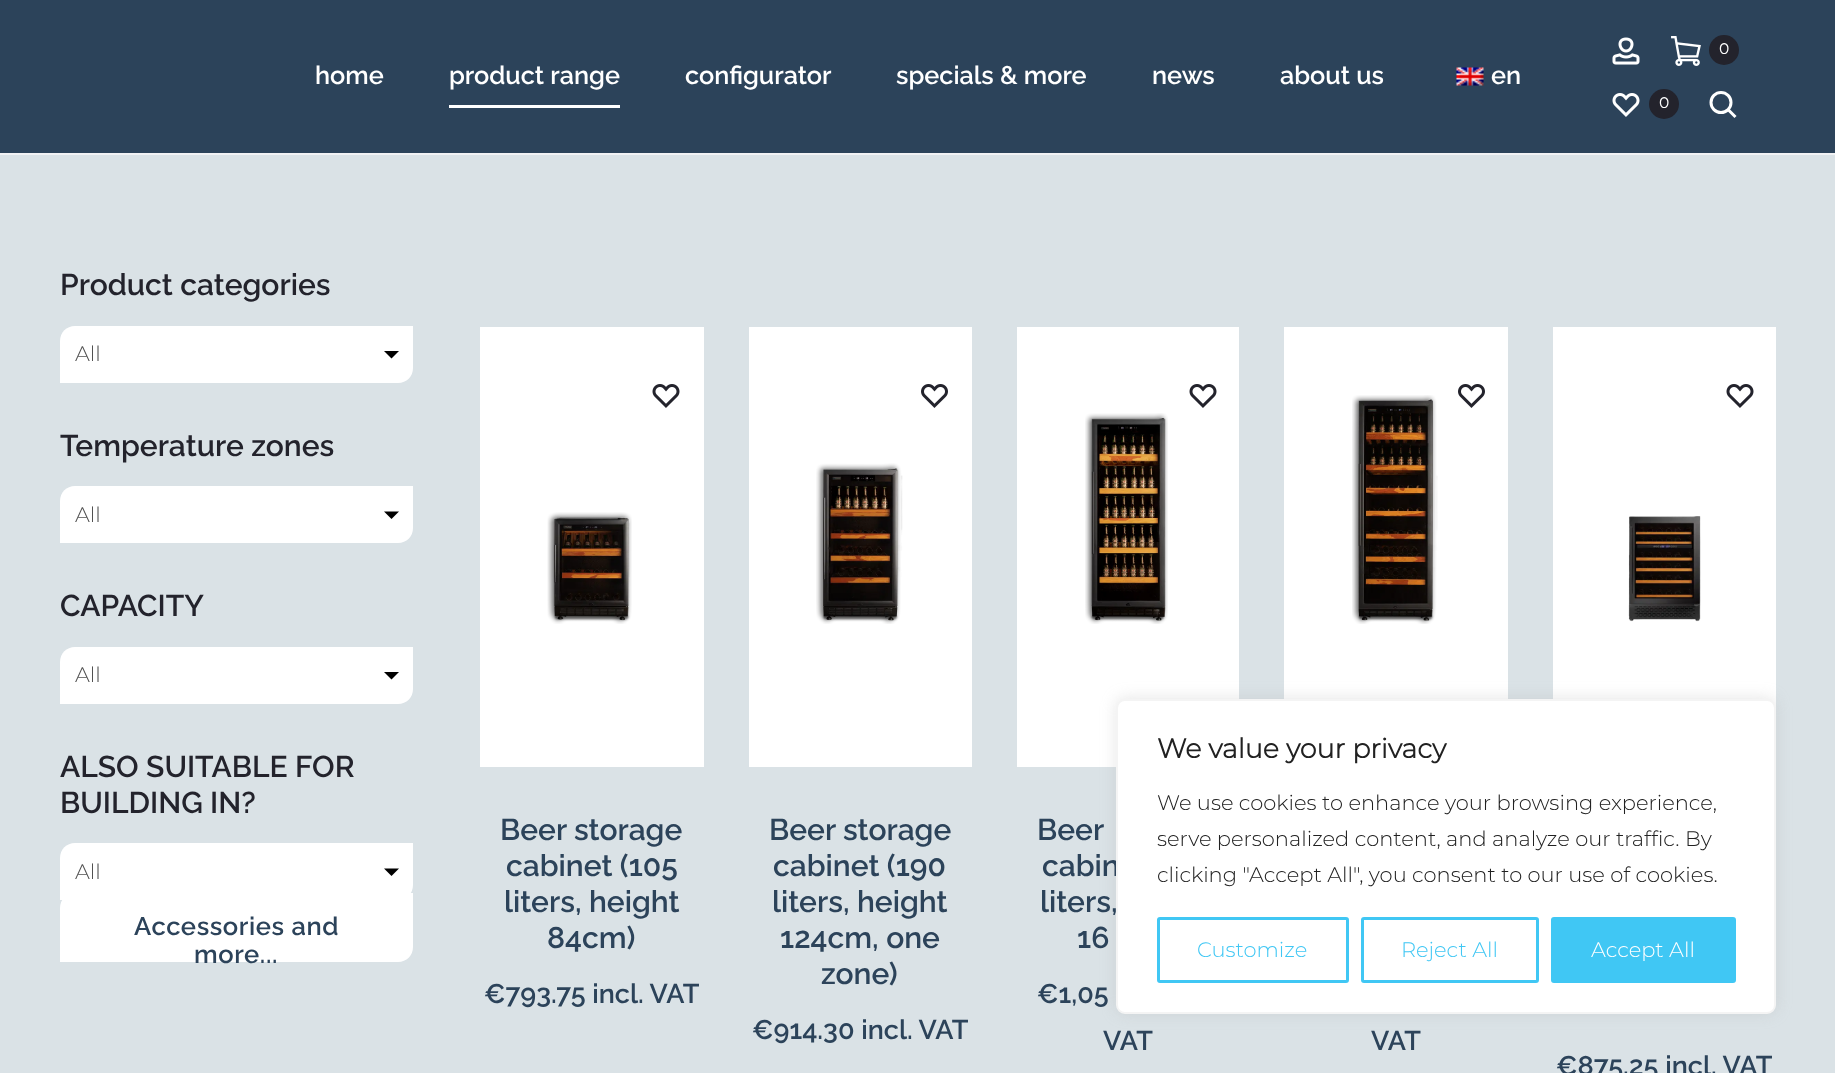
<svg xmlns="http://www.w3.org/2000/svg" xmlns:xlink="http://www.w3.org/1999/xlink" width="1835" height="1073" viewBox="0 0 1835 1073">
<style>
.cls-1{font:600 25.25px Raleway;fill:#ffffff}
.cls-2{font:bold 15px Montserrat;fill:#ffffff}
.cls-3{font:600 30px Raleway;fill:#23232c}
.cls-4{font:300 21px Montserrat;fill:#515151}
.cls-5{font:600 25.5px Raleway;letter-spacing:0.6px;fill:#2c435a}
.cls-6{font:600 30px Raleway;fill:#2c435a}
.cls-7{font:600 27px Raleway;fill:#2c435a}
.cls-8{font:bold 27px Montserrat;fill:#212121}
.cls-9{font:300 21px Montserrat;fill:#212121}
.cls-10{font:300 21px Montserrat;fill:#40c7f4}
.cls-11{font:300 21px Montserrat;fill:#ffffff}
</style>
<rect width="100%" height="100%" fill="#dae2e6"/>
<rect fill="#2c435a" x="0" y="0" width="1835" height="153"/>
<rect fill="#f1f2f4" x="0" y="153" width="1835" height="2"/>
<rect fill="#ffffff" x="449" y="105" width="171" height="3"/>
<image xlink:href="image0.png" x="1456" y="67" width="28" height="19"/>
<image xlink:href="image1.png" x="1612" y="37" width="28" height="28"/>
<image xlink:href="image2.png" x="1671" y="36" width="30" height="30"/>
<circle fill="#23232c" cx="1724" cy="50" r="15"/>
<image xlink:href="image3.png" x="1612" y="93" width="28" height="24"/>
<circle fill="#23232c" cx="1664" cy="104" r="15"/>
<circle fill="none" stroke="#ffffff" stroke-width="3" cx="1721" cy="102.5" r="10"/>
<path fill="none" stroke="#ffffff" stroke-width="3" d="M1728 109.5L1735.5 117"/>
<path fill="#ffffff" d="M75 326H413V368C413 376.5 406.5 383 398 383H60V341C60 332.5 66.5 326 75 326Z"/>
<path fill="#000000" d="M384 351L391.5 358.5L399 351Z"/>
<path fill="#ffffff" d="M75 486H413V528C413 536.5 406.5 543 398 543H60V501C60 492.5 66.5 486 75 486Z"/>
<path fill="#000000" d="M384 511.5L391.5 519L399 511.5Z"/>
<path fill="#ffffff" d="M75 647H413V689C413 697.5 406.5 704 398 704H60V662C60 653.5 66.5 647 75 647Z"/>
<path fill="#000000" d="M384 672L391.5 679.5L399 672Z"/>
<path fill="#ffffff" d="M75 893H413V947C413 955.5 406.5 962 398 962H60V908C60 899.5 66.5 893 75 893Z"/>
<path fill="#ffffff" d="M75 843H413V885C413 893.5 406.5 900 398 900H60V858C60 849.5 66.5 843 75 843Z"/>
<path fill="#000000" d="M384 868.5L391.5 876L399 868.5Z"/>
<rect fill="#ffffff" x="480" y="327" width="224" height="440"/>
<image xlink:href="image4.png" x="652" y="384" width="28" height="24"/>
<image xlink:href="image5.png" x="547" y="512" width="85" height="112"/>
<rect fill="#ffffff" x="749" y="327" width="223" height="440"/>
<image xlink:href="image6.png" x="921" y="384" width="27" height="24"/>
<image xlink:href="image7.png" x="816" y="463" width="87" height="161"/>
<rect fill="#ffffff" x="1017" y="327" width="222" height="440"/>
<image xlink:href="image4.png" x="1189" y="384" width="28" height="24"/>
<image xlink:href="image8.png" x="1085" y="413" width="83" height="211"/>
<rect fill="#ffffff" x="1284" y="327" width="224" height="372"/>
<image xlink:href="image9.png" x="1352" y="395" width="86" height="229"/>
<image xlink:href="image6.png" x="1458" y="384" width="27" height="24"/>
<rect fill="#ffffff" x="1553" y="327" width="223" height="381"/>
<image xlink:href="image4.png" x="1726" y="384" width="28" height="24"/>
<image xlink:href="image10.png" x="1628" y="516" width="73" height="106"/>
<rect fill="#acabab" fill-opacity="0.3" filter="blur(7.5px)" x="1116" y="698" width="660" height="315" rx="9"/>
<text class="cls-1" x="315" y="84">home</text>
<text class="cls-1" x="449" y="84">product range</text>
<text class="cls-1" x="685" y="84">configurator</text>
<text class="cls-1" x="896" y="84">specials &amp; more</text>
<text class="cls-1" x="1152" y="84">news</text>
<text class="cls-1" x="1280" y="84">about us</text>
<text class="cls-1" x="1491" y="84">en</text>
<text class="cls-2" x="1719" y="54">0</text>
<text class="cls-2" x="1659" y="108">0</text>
<text class="cls-3" x="60" y="295">Product categories</text>
<text class="cls-4" x="75" y="361">All</text>
<text class="cls-3" x="60" y="456">Temperature zones</text>
<text class="cls-4" x="75" y="522">All</text>
<text class="cls-3" x="60" y="616">CAPACITY</text>
<text class="cls-4" x="75" y="682">All</text>
<text class="cls-3"><tspan x="60" y="777">ALSO SUITABLE FOR</tspan><tspan x="60" y="813">BUILDING IN?</tspan></text>
<text class="cls-4" x="75" y="879">All</text>
<text class="cls-5" x="134" y="935">Accessories and</text>
<text class="cls-5" x="194" y="963">more...</text>
<text class="cls-6" x="500" y="840">Beer storage</text>
<text class="cls-6" x="506" y="876">cabinet (105</text>
<text class="cls-6" x="504" y="912">liters, height</text>
<text class="cls-6" x="547" y="948">84cm)</text>
<text class="cls-7" x="484" y="1003">€793.75 incl. VAT</text>
<text class="cls-6" x="769" y="840">Beer storage</text>
<text class="cls-6" x="773" y="876">cabinet (190</text>
<text class="cls-6" x="772" y="912">liters, height</text>
<text class="cls-6" x="780" y="948">124cm, one</text>
<text class="cls-6" x="821" y="984">zone)</text>
<text class="cls-7" x="752" y="1039">€914.30 incl. VAT</text>
<text class="cls-6" x="1037" y="840">Beer</text>
<text class="cls-6" x="1042" y="876">cabin</text>
<text class="cls-6" x="1040" y="912">liters,</text>
<text class="cls-6" x="1077" y="948">16</text>
<text class="cls-7" x="1037" y="1003">€1,05</text>
<text class="cls-7" x="1103" y="1050">VAT</text>
<text class="cls-7" x="1371" y="1050">VAT</text>
<text class="cls-7" x="1556" y="1075">€875.25 incl. VAT</text>
<rect fill="#ffffff" stroke="#f4f4f4" stroke-width="2" x="1117" y="700" width="658" height="313" rx="8"/>
<text class="cls-8" x="1157" y="758">We value your privacy</text>
<text class="cls-9"><tspan x="1157" y="810">We use cookies to enhance your browsing experience,</tspan><tspan x="1157" y="846">serve personalized content, and analyze our traffic. By</tspan><tspan x="1157" y="882">clicking "Accept All", you consent to our use of cookies.</tspan></text>
<rect fill="none" stroke="#40c7f4" stroke-width="3" x="1158.5" y="918.5" width="189" height="63" rx="1.5"/>
<text class="cls-10" x="1197" y="957">Customize</text>
<rect fill="none" stroke="#40c7f4" stroke-width="3" x="1362.5" y="918.5" width="175" height="63" rx="1.5"/>
<text class="cls-10" x="1401" y="957">Reject All</text>
<rect fill="#40c7f4" stroke="#40c7f4" stroke-width="3" x="1552.5" y="918.5" width="182" height="63" rx="1.5"/>
<text class="cls-11" x="1591" y="957">Accept All</text>
</svg>
